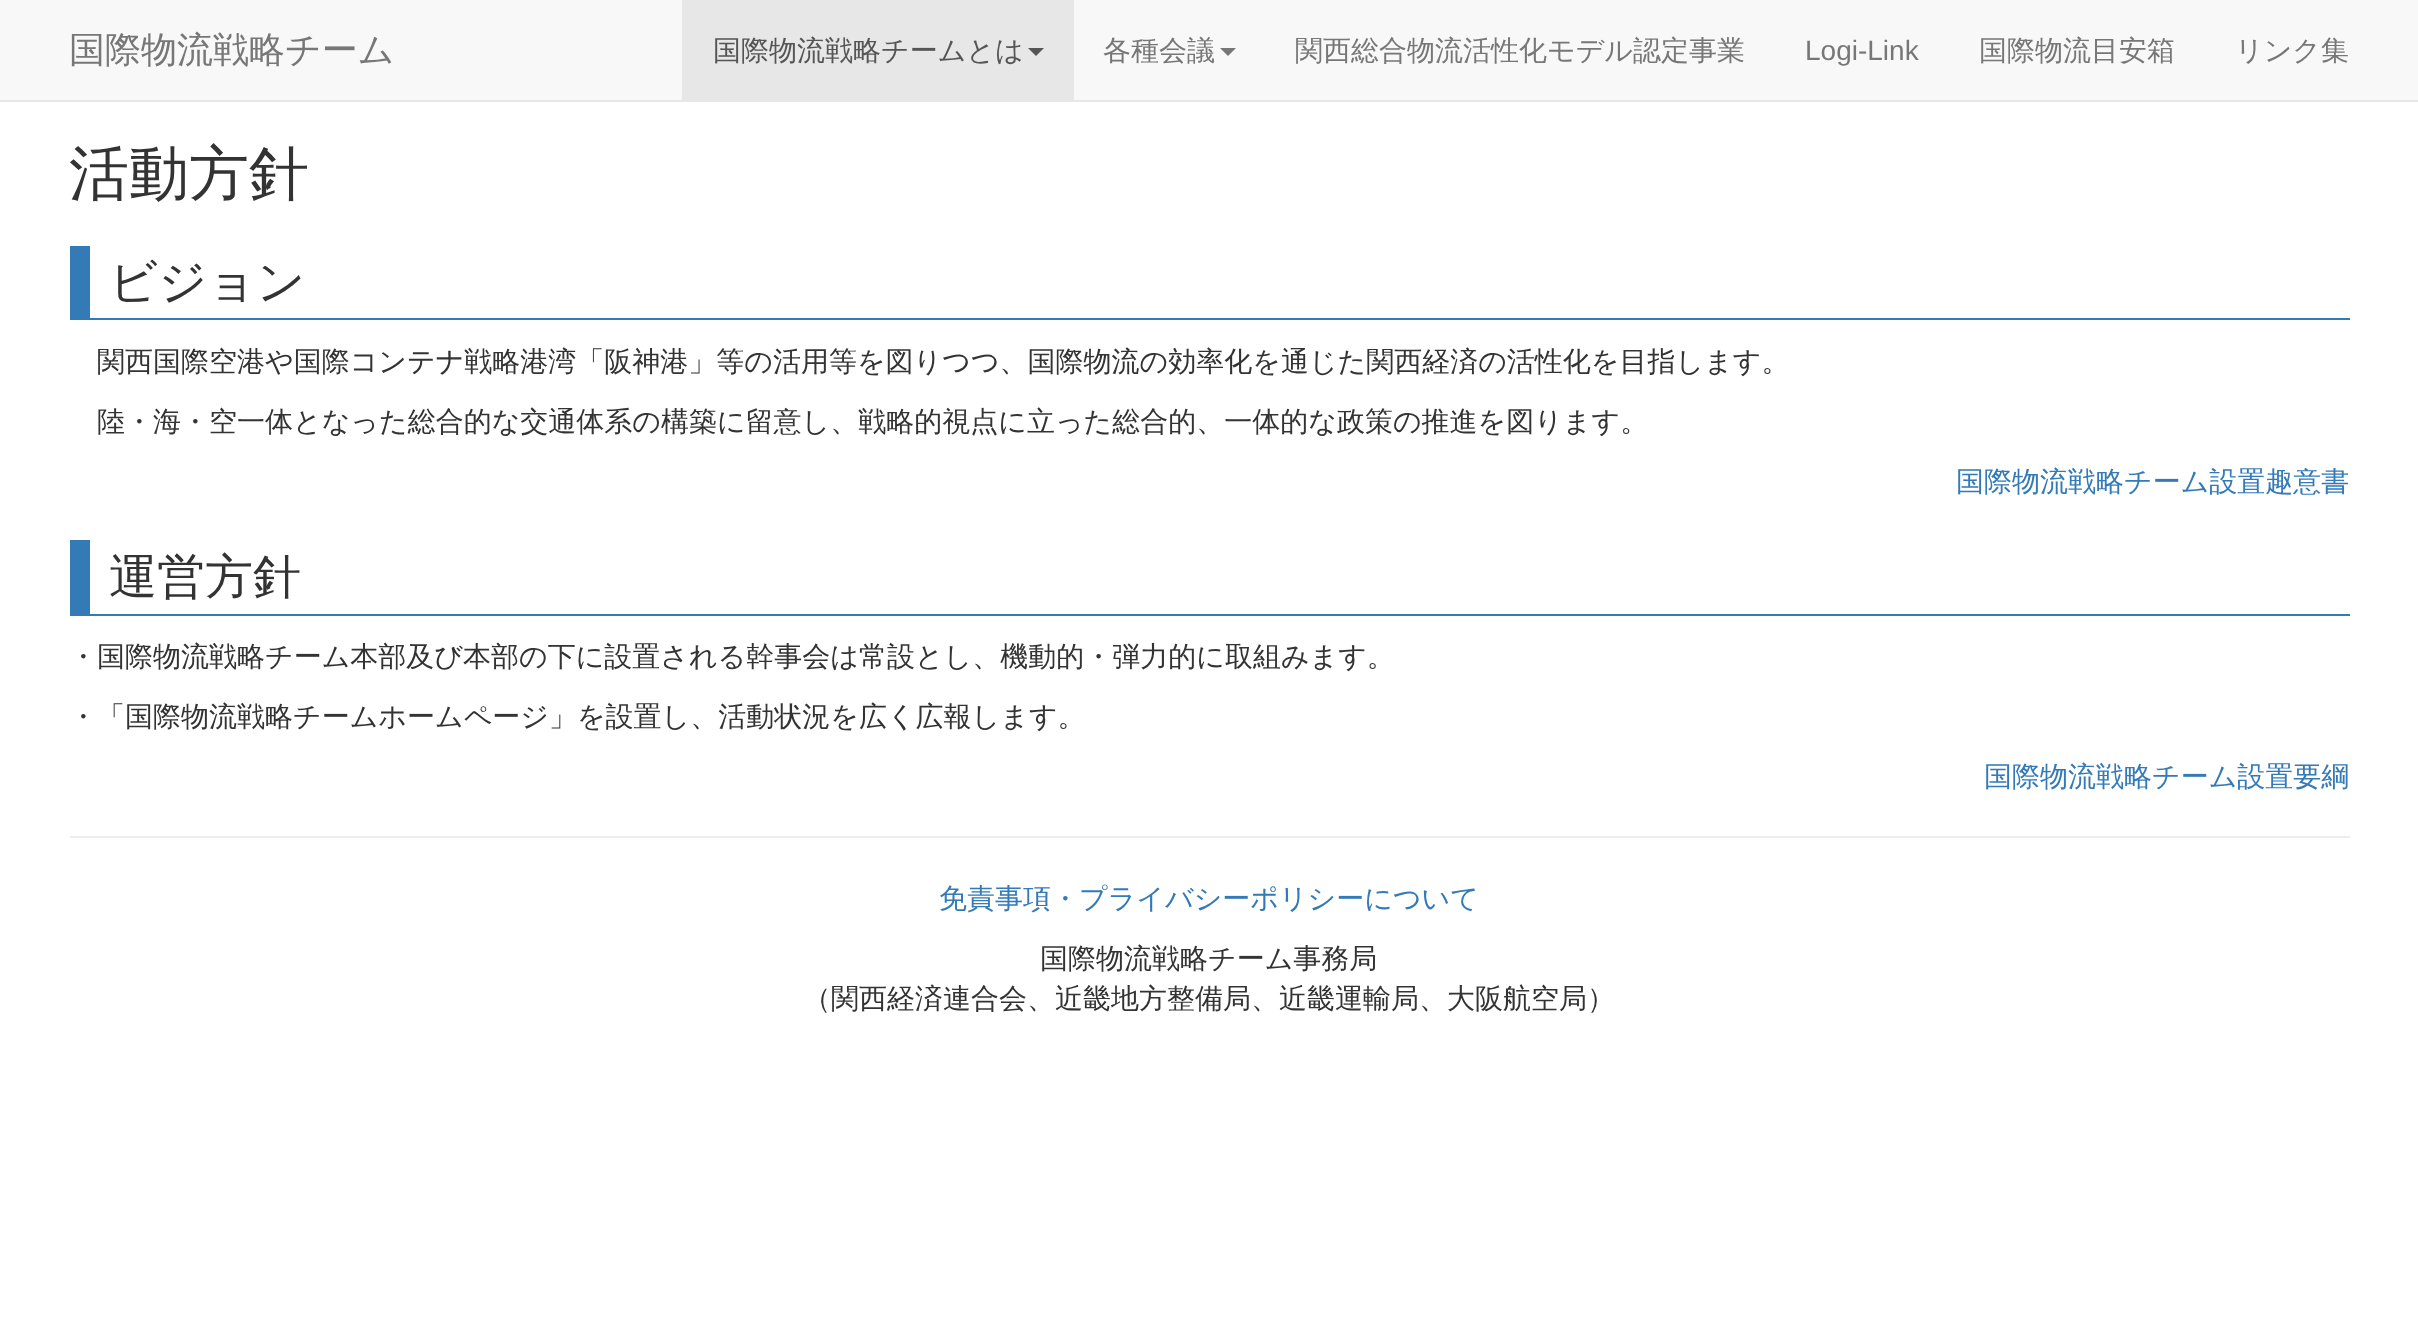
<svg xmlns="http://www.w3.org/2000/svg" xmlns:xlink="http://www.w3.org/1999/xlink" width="2418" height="1334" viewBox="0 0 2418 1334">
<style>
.cls-1{font:500 36px WenQuanYi Zen Hei;fill:#777777}
.cls-2{font:500 28px WenQuanYi Zen Hei;fill:#555555}
.cls-3{font:500 28px WenQuanYi Zen Hei;fill:#777777}
.cls-4{font:28px Liberation Sans;fill:#777777}
.cls-5{font:500 60px WenQuanYi Zen Hei;fill:#333333}
.cls-6{font:500 48px WenQuanYi Zen Hei;fill:#333333}
.cls-7{font:500 28px WenQuanYi Zen Hei;fill:#333333}
.cls-8{font:500 28px WenQuanYi Zen Hei;fill:#337ab7}
</style>
<rect width="100%" height="100%" fill="#ffffff"/>
<rect fill="#f8f8f8" x="0" y="0" width="2418" height="100"/>
<rect fill="#e7e7e7" x="0" y="100" width="2418" height="2"/>
<rect fill="#e7e7e7" x="682" y="0" width="392" height="100"/>
<path fill="#555555" d="M1028 48H1044L1036 56Z"/>
<path fill="#777777" d="M1220 48H1236L1228 56Z"/>
<rect fill="#337ab7" x="90" y="318" width="2260" height="2"/>
<rect fill="#337ab7" x="70" y="246" width="20" height="74"/>
<rect fill="#337ab7" x="90" y="614" width="2260" height="2"/>
<rect fill="#337ab7" x="70" y="540" width="20" height="76"/>
<rect fill="#eeeeee" x="70" y="836" width="2280" height="2"/>
<text class="cls-1" x="69" y="62">国際物流戦略チーム</text>
<text class="cls-2" x="713" y="60">国際物流戦略チームとは</text>
<text class="cls-3" x="1103" y="60">各種会議</text>
<text class="cls-3" x="1295" y="60">関西総合物流活性化モデル認定事業</text>
<text class="cls-4" x="1805" y="60">Logi-Link</text>
<text class="cls-3" x="1979" y="60">国際物流目安箱</text>
<text class="cls-3" x="2235" y="60">リンク集</text>
<text class="cls-5" x="69" y="194">活動方針</text>
<text class="cls-6" x="109" y="298">ビジョン</text>
<text class="cls-7" x="97" y="371">関西国際空港や国際コンテナ戦略港湾「阪神港」等の活用等を図りつつ、国際物流の効率化を通じた関西経済の活性化を目指します。</text>
<text class="cls-7" x="97" y="431">陸・海・空一体となった総合的な交通体系の構築に留意し、戦略的視点に立った総合的、一体的な政策の推進を図ります。</text>
<text class="cls-8" x="1956" y="491">国際物流戦略チーム設置趣意書</text>
<text class="cls-6" x="109" y="593">運営方針</text>
<text class="cls-7" x="69" y="666">・国際物流戦略チーム本部及び本部の下に設置される幹事会は常設とし、機動的・弾力的に取組みます。</text>
<text class="cls-7" x="69" y="726">・「国際物流戦略チームホームページ」を設置し、活動状況を広く広報します。</text>
<text class="cls-8" x="1984" y="786">国際物流戦略チーム設置要綱</text>
<text class="cls-8" x="939" y="908">免責事項・プライバシーポリシーについて</text>
<text class="cls-7" x="1040" y="968">国際物流戦略チーム事務局</text>
<text class="cls-7" x="803" y="1008">（関西経済連合会、近畿地方整備局、近畿運輸局、大阪航空局）</text>
</svg>
